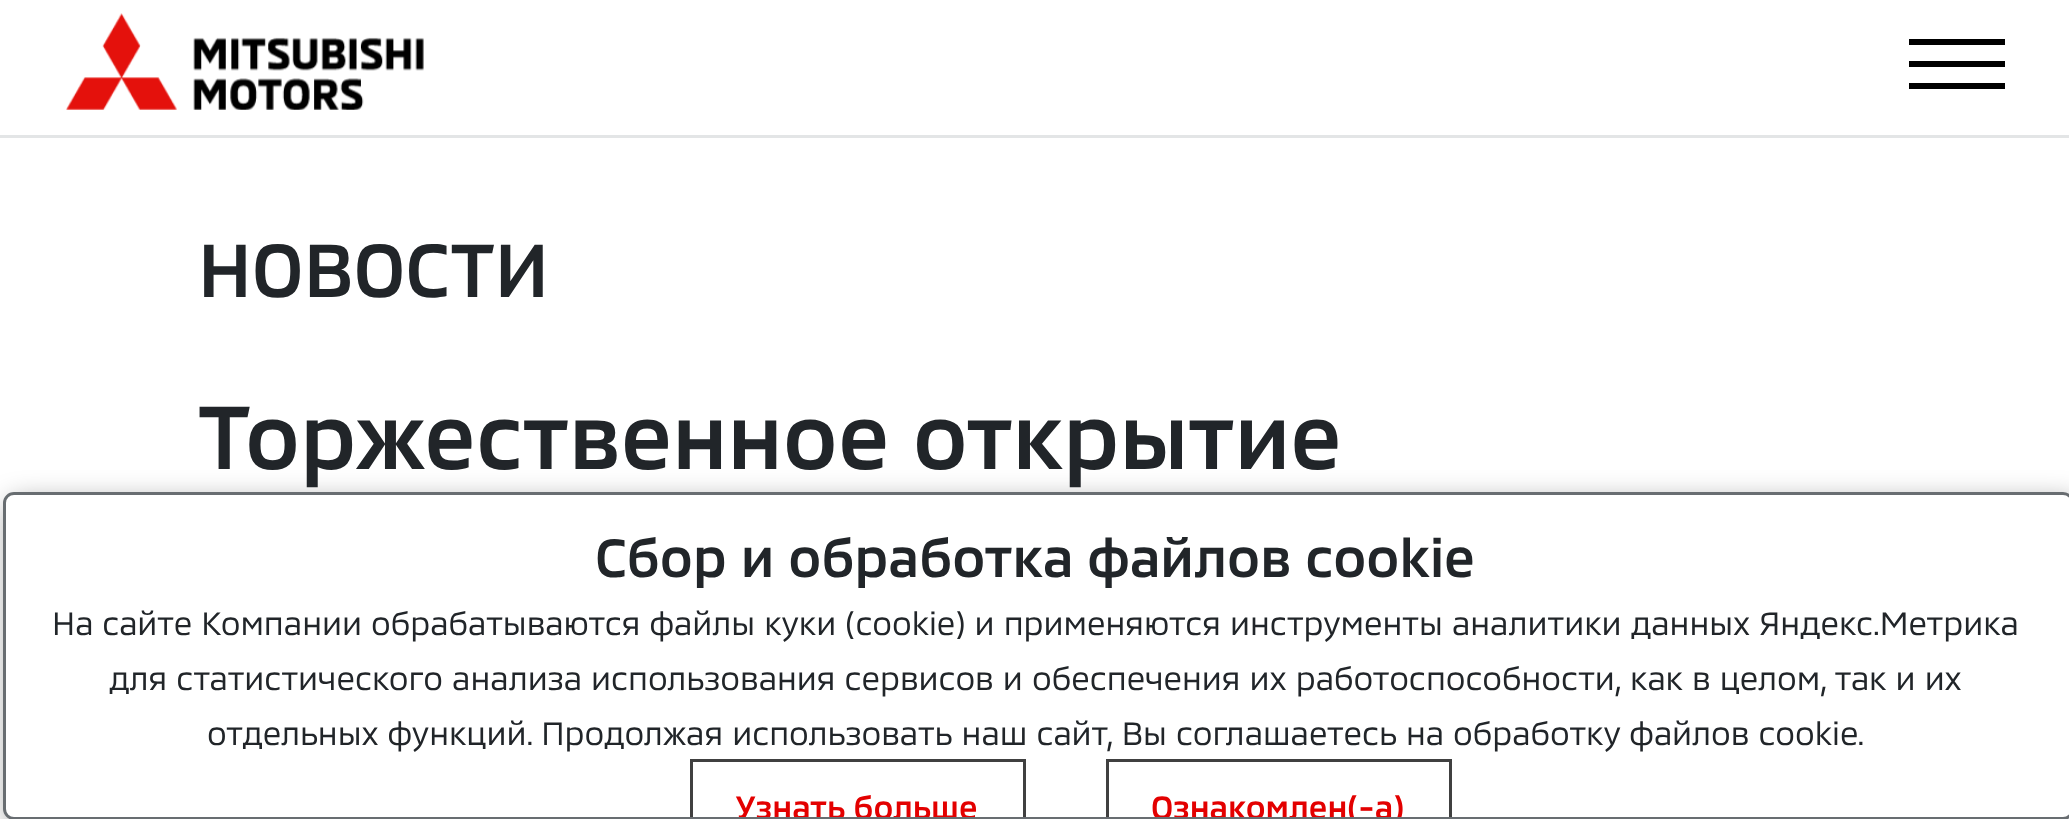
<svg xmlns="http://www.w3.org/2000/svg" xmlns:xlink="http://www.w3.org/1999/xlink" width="2069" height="819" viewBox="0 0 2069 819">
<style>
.cls-1{font:500 77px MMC;fill:#212529}
.cls-2{font:500 91.5px MMC;fill:#212529}
.cls-3{font:500 55px MMC;fill:#212529}
.cls-4{font:33px MMC;fill:#212529}
.cls-5{font:500 33px MMC;fill:#e30000}
</style>
<defs>
<clipPath id="clip1"><path d="M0 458H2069V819H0ZM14 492H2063C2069 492 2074 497 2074 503V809C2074 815 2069 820 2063 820H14C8 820 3 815 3 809V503C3 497 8 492 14 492Z" clip-rule="evenodd"/></clipPath>
<clipPath id="clip2"><rect x="6" y="495" width="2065" height="322" rx="8"/></clipPath>
</defs>
<rect width="100%" height="100%" fill="#ffffff"/>
<rect fill="#e3e5e6" x="0" y="135" width="2069" height="3"/>
<image xlink:href="image0.png" x="66" y="13" width="358" height="97"/>
<rect fill="#000000" x="1909" y="39" width="96" height="6"/>
<rect fill="#000000" x="1909" y="61" width="96" height="6"/>
<rect fill="#000000" x="1909" y="83" width="96" height="6"/>
<g clip-path="url(#clip1)">
<rect fill="#000000" fill-opacity="0.4" filter="blur(14px)" x="8" y="501" width="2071" height="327" rx="11"/>
</g>
<rect fill="#ffffff" stroke="#686d71" stroke-width="3" x="4.5" y="493.5" width="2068" height="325" rx="9.5"/>
<path fill="#404040" d="M690 759V817H693V762H1023V817H1026V759Z"/>
<path fill="#404040" d="M1106 759V817H1109V762H1449V817H1452V759Z"/>
<text class="cls-1" x="198" y="297">НОВОСТИ</text>
<text class="cls-2" x="198" y="469">Торжественное открытие</text>
<text class="cls-3" x="595" y="577">Сбор и обработка файлов cookie</text>
<text class="cls-4" x="52" y="635">На сайте Компании обрабатываются файлы куки (cookie) и применяются инструменты аналитики данных Яндекс.Метрика</text>
<text class="cls-4" x="109" y="690">для статистического анализа использования сервисов и обеспечения их работоспособности, как в целом, так и их</text>
<text class="cls-4" x="207" y="745">отдельных функций. Продолжая использовать наш сайт, Вы соглашаетесь на обработку файлов cookie.</text>
<g clip-path="url(#clip2)">
<text class="cls-5" x="735" y="819">Узнать больше</text>
<text class="cls-5" x="1151" y="819">Ознакомлен(-а)</text>
</g>
</svg>
